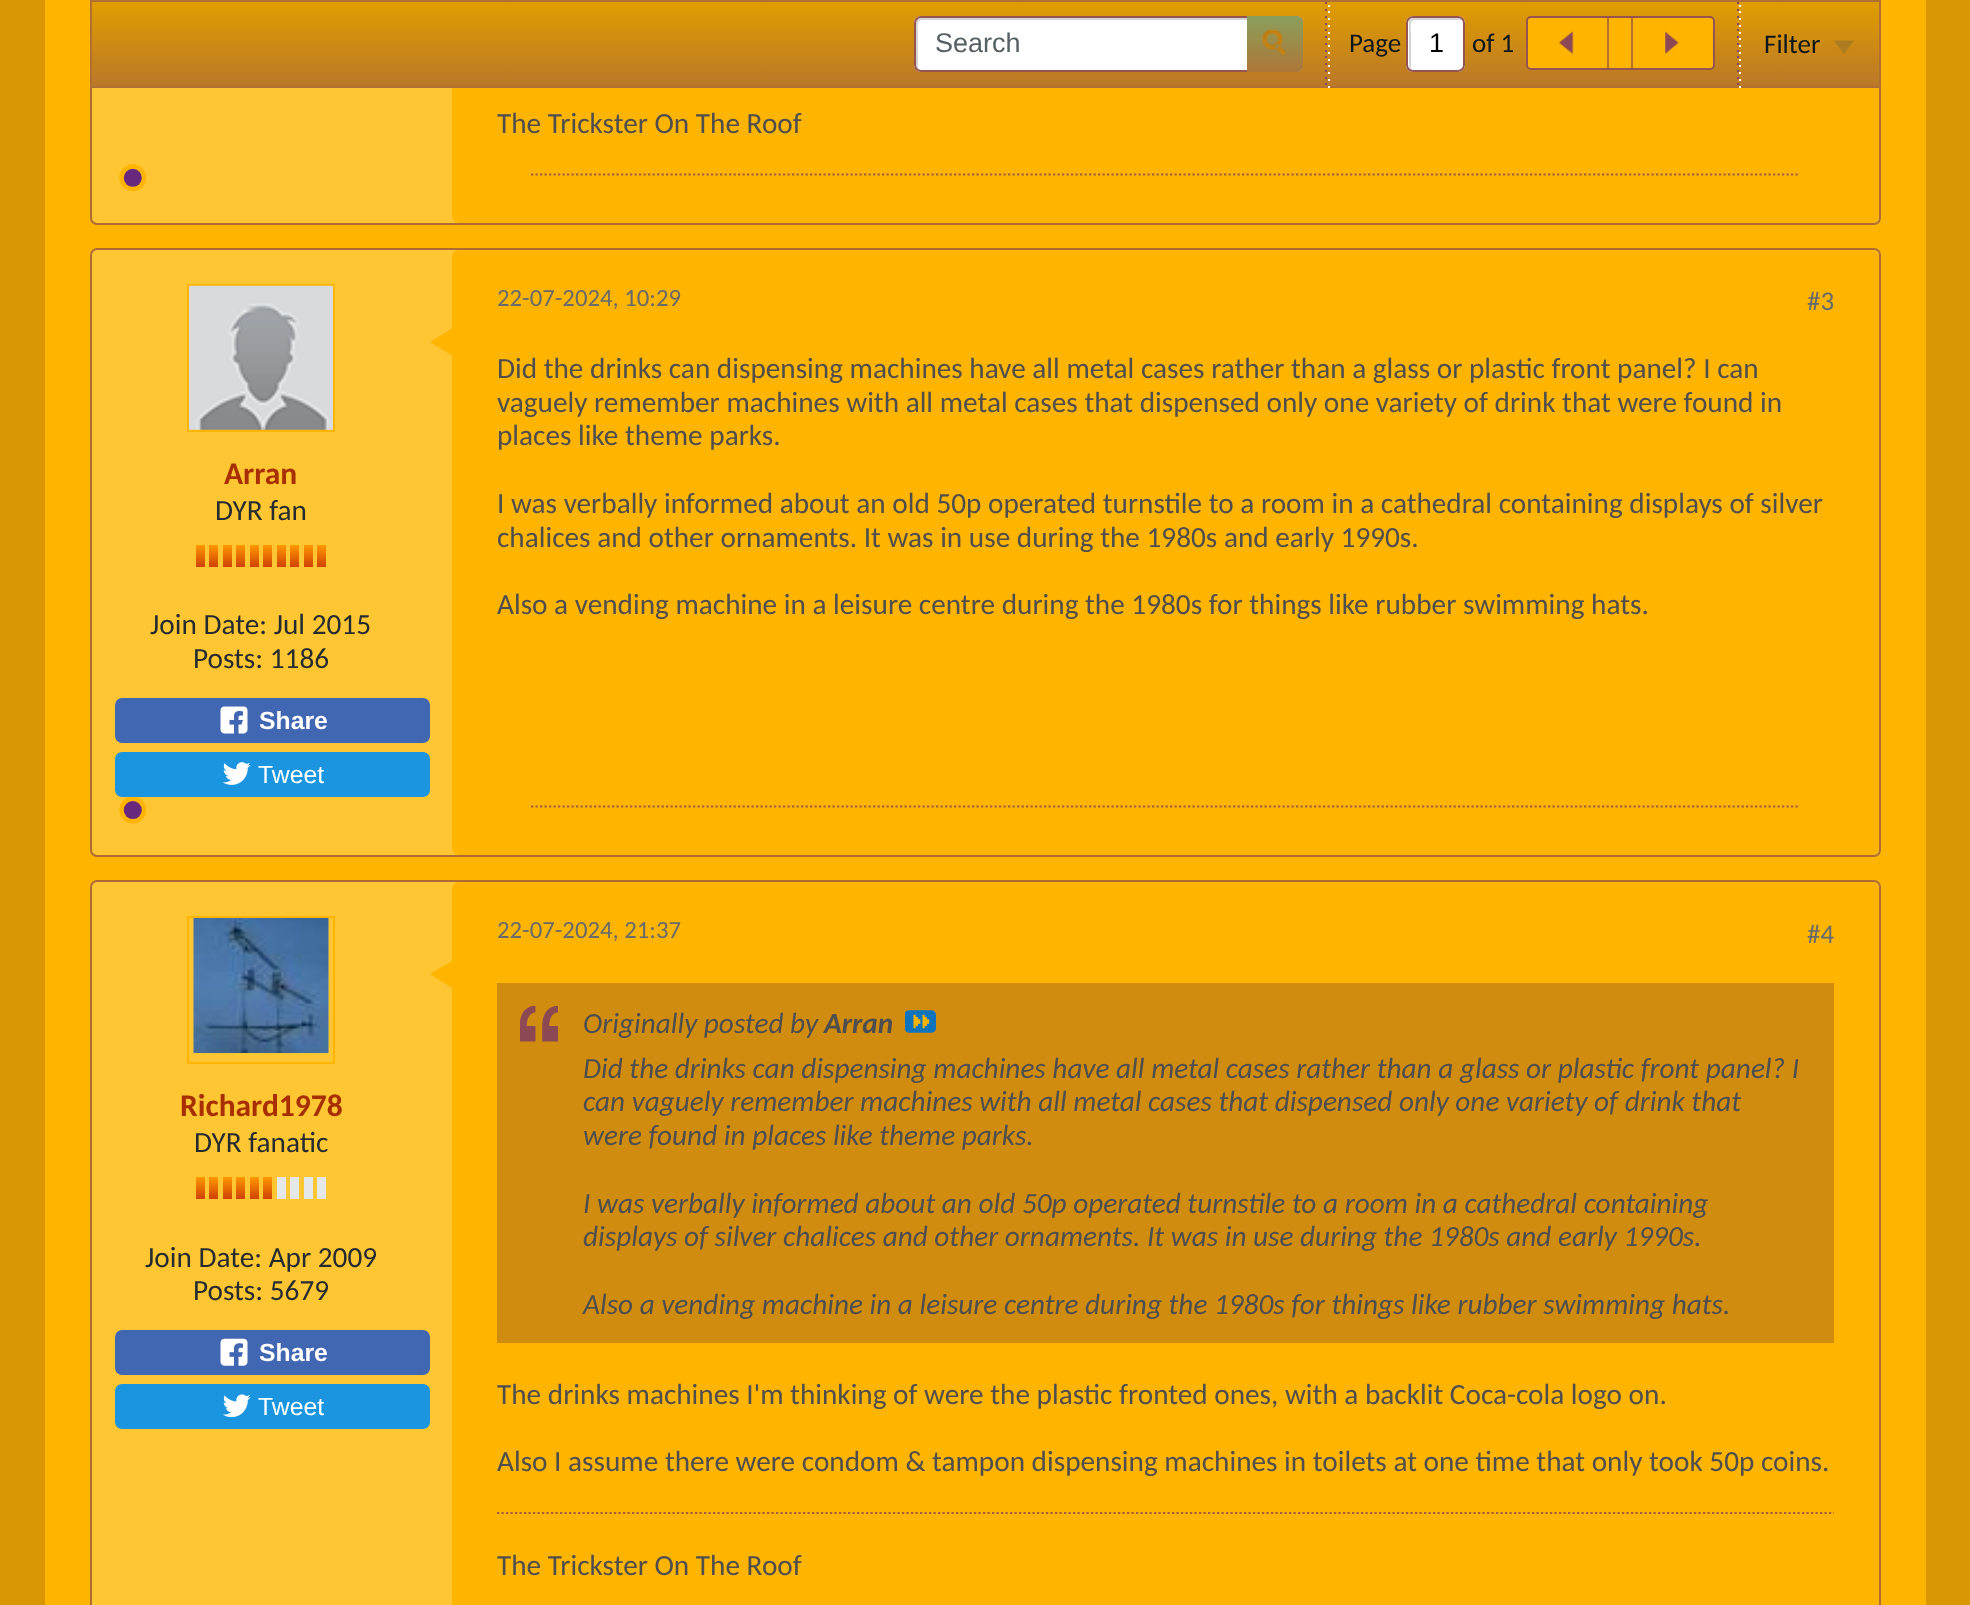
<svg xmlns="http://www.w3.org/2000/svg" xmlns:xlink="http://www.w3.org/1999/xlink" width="1970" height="1605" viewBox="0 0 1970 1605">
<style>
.cls-1{font:27px Liberation Sans;fill:#556065}
.cls-2{font:27px Carlito;fill:#09161b}
.cls-3{font:27px Liberation Sans;fill:#000000}
.cls-4{font:29.25px Carlito;fill:#4e4e4e}
.cls-5{font:bold 31.5px Carlito;fill:#a72f01}
.cls-6{font:29.25px Carlito;fill:#252c2f}
.cls-7{font:bold 24.75px Liberation Sans;fill:#ffffff}
.cls-8{font:24.75px Liberation Sans;fill:#ffffff}
.cls-9{font:24.75px Carlito;fill:#656a6d}
.cls-10{font:27px Carlito;fill:#656a6d}
.cls-11{font:italic 29.25px Carlito;fill:#4e4e4e}
.cls-12{font:italic bold 29.25px Carlito;fill:#4e4e4e}
</style>
<defs>
<linearGradient id="g1" gradientUnits="userSpaceOnUse" x1="986" y1="2.2" x2="986" y2="86"><stop offset="0" stop-color="#e09d00"/><stop offset="1" stop-color="#ba7828"/></linearGradient>
<linearGradient id="g2" gradientUnits="userSpaceOnUse" x1="1275" y1="16" x2="1275" y2="72"><stop offset="0" stop-color="#8a9f5c"/><stop offset="1" stop-color="#ae7638"/></linearGradient>
<linearGradient id="g3" gradientUnits="userSpaceOnUse" x1="200" y1="545" x2="200" y2="567"><stop offset="0" stop-color="#ff9900"/><stop offset="1" stop-color="#cf4104"/></linearGradient>
<linearGradient id="g4" gradientUnits="userSpaceOnUse" x1="214" y1="545" x2="214" y2="567"><stop offset="0" stop-color="#ff9900"/><stop offset="1" stop-color="#cf4104"/></linearGradient>
<linearGradient id="g5" gradientUnits="userSpaceOnUse" x1="227" y1="545" x2="227" y2="567"><stop offset="0" stop-color="#ff9900"/><stop offset="1" stop-color="#cf4104"/></linearGradient>
<linearGradient id="g6" gradientUnits="userSpaceOnUse" x1="241" y1="545" x2="241" y2="567"><stop offset="0" stop-color="#ff9900"/><stop offset="1" stop-color="#cf4104"/></linearGradient>
<linearGradient id="g7" gradientUnits="userSpaceOnUse" x1="254" y1="545" x2="254" y2="567"><stop offset="0" stop-color="#ff9900"/><stop offset="1" stop-color="#cf4104"/></linearGradient>
<linearGradient id="g8" gradientUnits="userSpaceOnUse" x1="268" y1="545" x2="268" y2="567"><stop offset="0" stop-color="#ff9900"/><stop offset="1" stop-color="#cf4104"/></linearGradient>
<linearGradient id="g9" gradientUnits="userSpaceOnUse" x1="281" y1="545" x2="281" y2="567"><stop offset="0" stop-color="#ff9900"/><stop offset="1" stop-color="#cf4104"/></linearGradient>
<linearGradient id="g10" gradientUnits="userSpaceOnUse" x1="295" y1="545" x2="295" y2="567"><stop offset="0" stop-color="#ff9900"/><stop offset="1" stop-color="#cf4104"/></linearGradient>
<linearGradient id="g11" gradientUnits="userSpaceOnUse" x1="308" y1="545" x2="308" y2="567"><stop offset="0" stop-color="#ff9900"/><stop offset="1" stop-color="#cf4104"/></linearGradient>
<linearGradient id="g12" gradientUnits="userSpaceOnUse" x1="322" y1="545" x2="322" y2="567"><stop offset="0" stop-color="#ff9900"/><stop offset="1" stop-color="#cf4104"/></linearGradient>
<linearGradient id="g13" gradientUnits="userSpaceOnUse" x1="200" y1="1177" x2="200" y2="1199"><stop offset="0" stop-color="#ff9900"/><stop offset="1" stop-color="#cf4104"/></linearGradient>
<linearGradient id="g14" gradientUnits="userSpaceOnUse" x1="214" y1="1177" x2="214" y2="1199"><stop offset="0" stop-color="#ff9900"/><stop offset="1" stop-color="#cf4104"/></linearGradient>
<linearGradient id="g15" gradientUnits="userSpaceOnUse" x1="227" y1="1177" x2="227" y2="1199"><stop offset="0" stop-color="#ff9900"/><stop offset="1" stop-color="#cf4104"/></linearGradient>
<linearGradient id="g16" gradientUnits="userSpaceOnUse" x1="241" y1="1177" x2="241" y2="1199"><stop offset="0" stop-color="#ff9900"/><stop offset="1" stop-color="#cf4104"/></linearGradient>
<linearGradient id="g17" gradientUnits="userSpaceOnUse" x1="254" y1="1177" x2="254" y2="1199"><stop offset="0" stop-color="#ff9900"/><stop offset="1" stop-color="#cf4104"/></linearGradient>
<linearGradient id="g18" gradientUnits="userSpaceOnUse" x1="268" y1="1177" x2="268" y2="1199"><stop offset="0" stop-color="#ff9900"/><stop offset="1" stop-color="#cf4104"/></linearGradient>
</defs>
<rect width="100%" height="100%" fill="#da9605"/>
<rect fill="#ffb400" x="45" y="0" width="1881" height="1605"/>
<rect fill="#ffc634" stroke="#ae6c35" stroke-width="2" x="91" y="-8" width="1789" height="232" rx="6"/>
<rect fill="#ffb400" x="452" y="-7" width="1427" height="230" rx="7"/>
<rect fill="url(#g1)" x="92" y="2" width="1787" height="84"/>
<rect fill="none" stroke="#b07034" stroke-width="2" x="91" y="1" width="1789" height="86"/>
<rect fill="#ffffff" x="914" y="16" width="389" height="56" rx="7"/>
<path fill="#d5d5d5" d="M922 20H1298H1300C1299 19 1298 18 1296 18H921C918 18 916 20 916 23V65C916 67 917 68 918 69V32C918 30 916 20 922 20Z"/>
<rect fill="none" stroke="#95544f" stroke-width="2" x="915" y="17" width="387" height="54" rx="6"/>
<path fill="url(#g2)" d="M1247 16H1296C1300 16 1303 19 1303 23V65C1303 69 1300 72 1296 72H1247Z"/>
<image xlink:href="image0.png" x="1262" y="29" width="25" height="27"/>
<rect fill="#854762" x="1325" y="2" width="2" height="2"/>
<rect fill="#854762" x="1325" y="9" width="2" height="2"/>
<rect fill="#854762" x="1325" y="16" width="2" height="2"/>
<rect fill="#854762" x="1325" y="23" width="2" height="2"/>
<rect fill="#854762" x="1325" y="29" width="2" height="2"/>
<rect fill="#854762" x="1325" y="36" width="2" height="2"/>
<rect fill="#854762" x="1325" y="43" width="2" height="2"/>
<rect fill="#854762" x="1325" y="50" width="2" height="2"/>
<rect fill="#854762" x="1325" y="56" width="2" height="2"/>
<rect fill="#854762" x="1325" y="63" width="2" height="2"/>
<rect fill="#854762" x="1325" y="70" width="2" height="2"/>
<rect fill="#854762" x="1325" y="77" width="2" height="2"/>
<rect fill="#854762" x="1325" y="83" width="2" height="2"/>
<rect fill="#ffffff" x="1328" y="5" width="2" height="2"/>
<rect fill="#ffffff" x="1328" y="11" width="2" height="2"/>
<rect fill="#ffffff" x="1328" y="18" width="2" height="2"/>
<rect fill="#ffffff" x="1328" y="25" width="2" height="2"/>
<rect fill="#ffffff" x="1328" y="32" width="2" height="2"/>
<rect fill="#ffffff" x="1328" y="38" width="2" height="2"/>
<rect fill="#ffffff" x="1328" y="45" width="2" height="2"/>
<rect fill="#ffffff" x="1328" y="52" width="2" height="2"/>
<rect fill="#ffffff" x="1328" y="59" width="2" height="2"/>
<rect fill="#ffffff" x="1328" y="65" width="2" height="2"/>
<rect fill="#ffffff" x="1328" y="72" width="2" height="2"/>
<rect fill="#ffffff" x="1328" y="79" width="2" height="2"/>
<rect fill="#ffffff" x="1328" y="86" width="2" height="2"/>
<rect fill="#ffffff" x="1406" y="16" width="59" height="56" rx="7"/>
<path fill="#d5d5d5" d="M1415 20H1460H1462C1461 19 1460 18 1458 18H1414C1411 18 1409 20 1409 23V65C1409 67 1410 68 1411 69V32C1411 30 1409 20 1415 20Z"/>
<rect fill="none" stroke="#95544f" stroke-width="2" x="1407" y="17" width="57" height="54" rx="6"/>
<rect fill="#ffb400" stroke="#95544f" stroke-width="2" x="1527" y="17" width="187" height="52" rx="4"/>
<rect fill="#b37230" x="1607" y="18" width="2" height="50"/>
<image xlink:href="image1.png" x="1559" y="31" width="15" height="23"/>
<rect fill="#b37230" x="1631" y="18" width="2" height="50"/>
<image xlink:href="image2.png" x="1665" y="31" width="14" height="23"/>
<rect fill="#854762" x="1737" y="2" width="2" height="2"/>
<rect fill="#854762" x="1737" y="9" width="2" height="2"/>
<rect fill="#854762" x="1737" y="16" width="2" height="2"/>
<rect fill="#854762" x="1737" y="23" width="2" height="2"/>
<rect fill="#854762" x="1737" y="29" width="2" height="2"/>
<rect fill="#854762" x="1737" y="36" width="2" height="2"/>
<rect fill="#854762" x="1737" y="43" width="2" height="2"/>
<rect fill="#854762" x="1737" y="50" width="2" height="2"/>
<rect fill="#854762" x="1737" y="56" width="2" height="2"/>
<rect fill="#854762" x="1737" y="63" width="2" height="2"/>
<rect fill="#854762" x="1737" y="70" width="2" height="2"/>
<rect fill="#854762" x="1737" y="77" width="2" height="2"/>
<rect fill="#854762" x="1737" y="83" width="2" height="2"/>
<rect fill="#ffffff" x="1739" y="5" width="2" height="2"/>
<rect fill="#ffffff" x="1739" y="11" width="2" height="2"/>
<rect fill="#ffffff" x="1739" y="18" width="2" height="2"/>
<rect fill="#ffffff" x="1739" y="25" width="2" height="2"/>
<rect fill="#ffffff" x="1739" y="32" width="2" height="2"/>
<rect fill="#ffffff" x="1739" y="38" width="2" height="2"/>
<rect fill="#ffffff" x="1739" y="45" width="2" height="2"/>
<rect fill="#ffffff" x="1739" y="52" width="2" height="2"/>
<rect fill="#ffffff" x="1739" y="59" width="2" height="2"/>
<rect fill="#ffffff" x="1739" y="65" width="2" height="2"/>
<rect fill="#ffffff" x="1739" y="72" width="2" height="2"/>
<rect fill="#ffffff" x="1739" y="79" width="2" height="2"/>
<rect fill="#ffffff" x="1739" y="86" width="2" height="2"/>
<image xlink:href="image3.png" x="1834" y="40" width="20" height="14"/>
<path fill="none" stroke="#9e5c46" stroke-width="2.2" stroke-dasharray="2.25 2.25" d="M531 174.5H1800"/>
<image xlink:href="image4.png" x="119" y="164" width="27" height="27"/>
<rect fill="#ffc634" stroke="#ae6c35" stroke-width="2" x="91" y="249" width="1789" height="607" rx="6"/>
<rect fill="none" stroke="#ffb400" stroke-width="2" x="188" y="285" width="146" height="146"/>
<image xlink:href="image5.png" x="189" y="285" width="144" height="145"/>
<rect fill="url(#g3)" x="196" y="545" width="9" height="22"/>
<rect fill="url(#g4)" x="209" y="545" width="9" height="22"/>
<rect fill="url(#g5)" x="223" y="545" width="9" height="22"/>
<rect fill="url(#g6)" x="236" y="545" width="9" height="22"/>
<rect fill="url(#g7)" x="250" y="545" width="9" height="22"/>
<rect fill="url(#g8)" x="263" y="545" width="9" height="22"/>
<rect fill="url(#g9)" x="277" y="545" width="9" height="22"/>
<rect fill="url(#g10)" x="290" y="545" width="9" height="22"/>
<rect fill="url(#g11)" x="304" y="545" width="9" height="22"/>
<rect fill="url(#g12)" x="317" y="545" width="9" height="22"/>
<image xlink:href="image6.png" x="119" y="797" width="27" height="27"/>
<rect fill="#4267b2" x="115" y="698" width="315" height="45" rx="7"/>
<image xlink:href="image7.png" x="220" y="706" width="28" height="28"/>
<rect fill="#1b95e0" x="115" y="752" width="315" height="45" rx="7"/>
<image xlink:href="image8.png" x="223" y="762" width="28" height="23"/>
<rect fill="#ffb400" x="452" y="250" width="1427" height="605" rx="7"/>
<path fill="#ffb400" d="M452 328.5V355.5L430 342Z"/>
<path fill="none" stroke="#9e5c46" stroke-width="2.2" stroke-dasharray="2.25 2.25" d="M531 806.5H1800"/>
<rect fill="#ffc634" stroke="#ae6c35" stroke-width="2" x="91" y="881" width="1789" height="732" rx="6"/>
<rect fill="none" stroke="#ffb400" stroke-width="2" x="188" y="917" width="146" height="146"/>
<image xlink:href="image9.png" x="193" y="918" width="136" height="135"/>
<rect fill="url(#g13)" x="196" y="1177" width="9" height="22"/>
<rect fill="url(#g14)" x="209" y="1177" width="9" height="22"/>
<rect fill="url(#g15)" x="223" y="1177" width="9" height="22"/>
<rect fill="url(#g16)" x="236" y="1177" width="9" height="22"/>
<rect fill="url(#g17)" x="250" y="1177" width="9" height="22"/>
<rect fill="url(#g18)" x="263" y="1177" width="9" height="22"/>
<rect fill="#e5e8e9" x="277" y="1177" width="9" height="22"/>
<rect fill="#e5e8e9" x="290" y="1177" width="9" height="22"/>
<rect fill="#e5e8e9" x="304" y="1177" width="9" height="22"/>
<rect fill="#e5e8e9" x="317" y="1177" width="9" height="22"/>
<rect fill="#4267b2" x="115" y="1330" width="315" height="45" rx="7"/>
<image xlink:href="image10.png" x="220" y="1338" width="28" height="28"/>
<rect fill="#1b95e0" x="115" y="1384" width="315" height="45" rx="7"/>
<image xlink:href="image11.png" x="222" y="1394" width="29" height="24"/>
<rect fill="#ffb400" x="452" y="882" width="1427" height="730" rx="7"/>
<path fill="#ffb400" d="M452 961V988L430 974Z"/>
<rect fill="#d08c0f" x="497" y="983" width="1337" height="360"/>
<image xlink:href="image12.png" x="520" y="1006" width="38" height="36"/>
<image xlink:href="image13.png" x="905" y="1010" width="31" height="23"/>
<path fill="none" stroke="#9e5c46" stroke-width="2.2" stroke-dasharray="2.25 2.25" d="M497 1513H1834"/>
<text class="cls-1" x="935" y="52">Search</text>
<text class="cls-2" x="1349" y="52">Page</text>
<text class="cls-3" x="1429" y="52">1</text>
<text class="cls-2" x="1472" y="52">of 1</text>
<text class="cls-2" x="1764" y="53">Filter</text>
<text class="cls-4" x="497" y="133">The Trickster On The Roof</text>
<text class="cls-5" x="224" y="484">Arran</text>
<text class="cls-6" x="215" y="520">DYR fan</text>
<text class="cls-6" x="150" y="634">Join Date: Jul 2015</text>
<text class="cls-6" x="193" y="668">Posts: 1186</text>
<text class="cls-7" x="259" y="729">Share</text>
<text class="cls-8" x="258" y="783">Tweet</text>
<text class="cls-9" x="497" y="306">22-07-2024, 10:29</text>
<text class="cls-10" x="1807" y="310">#3</text>
<text class="cls-4"><tspan x="497" y="378">Did the drinks can dispensing machines have all metal cases rather than a glass or plastic front panel? I can</tspan><tspan x="497" y="412">vaguely remember machines with all metal cases that dispensed only one variety of drink that were found in</tspan><tspan x="497" y="445">places like theme parks.</tspan></text>
<text class="cls-4"><tspan x="497" y="513">I was verbally informed about an old 50p operated turnstile to a room in a cathedral containing displays of silver</tspan><tspan x="497" y="547">chalices and other ornaments. It was in use during the 1980s and early 1990s.</tspan></text>
<text class="cls-4" x="497" y="614">Also a vending machine in a leisure centre during the 1980s for things like rubber swimming hats.</text>
<text class="cls-5" x="180" y="1116">Richard1978</text>
<text class="cls-6" x="194" y="1152">DYR fanatic</text>
<text class="cls-6" x="145" y="1267">Join Date: Apr 2009</text>
<text class="cls-6" x="193" y="1300">Posts: 5679</text>
<text class="cls-7" x="259" y="1361">Share</text>
<text class="cls-8" x="258" y="1415">Tweet</text>
<text class="cls-9" x="497" y="938">22-07-2024, 21:37</text>
<text class="cls-10" x="1807" y="943">#4</text>
<text class="cls-11" x="583" y="1033">Originally posted by</text>
<text class="cls-12" x="824" y="1033">Arran</text>
<text class="cls-11"><tspan x="583" y="1078">Did the drinks can dispensing machines have all metal cases rather than a glass or plastic front panel? I</tspan><tspan x="583" y="1111">can vaguely remember machines with all metal cases that dispensed only one variety of drink that</tspan><tspan x="583" y="1145">were found in places like theme parks.</tspan></text>
<text class="cls-11"><tspan x="583" y="1213">I was verbally informed about an old 50p operated turnstile to a room in a cathedral containing</tspan><tspan x="583" y="1246">displays of silver chalices and other ornaments. It was in use during the 1980s and early 1990s.</tspan></text>
<text class="cls-11" x="583" y="1314">Also a vending machine in a leisure centre during the 1980s for things like rubber swimming hats.</text>
<text class="cls-4" x="497" y="1404">The drinks machines I'm thinking of were the plastic fronted ones, with a backlit Coca-cola logo on.</text>
<text class="cls-4" x="497" y="1471">Also I assume there were condom &amp; tampon dispensing machines in toilets at one time that only took 50p coins.</text>
<text class="cls-4" x="497" y="1575">The Trickster On The Roof</text>
</svg>
